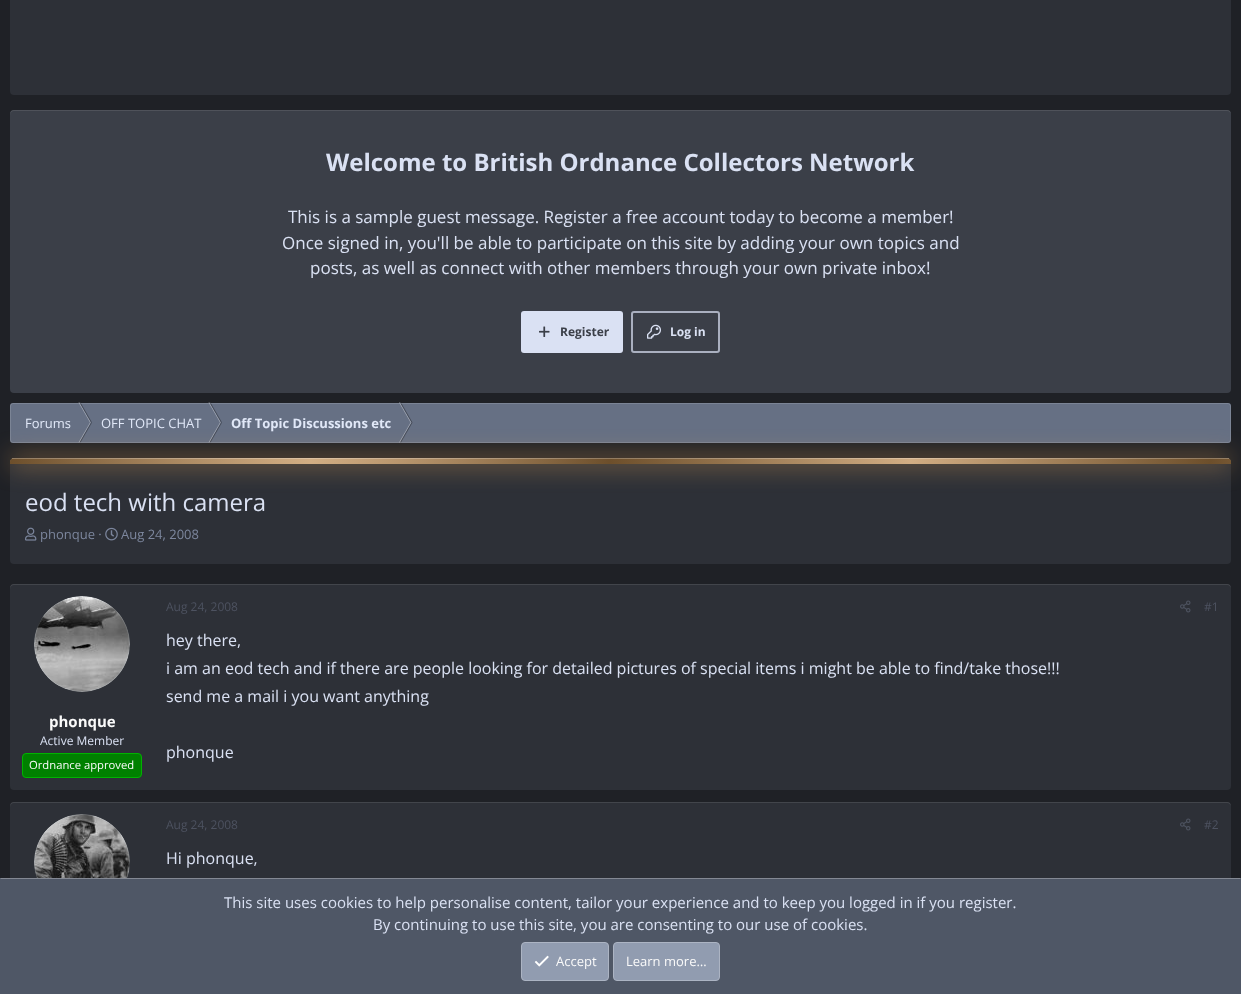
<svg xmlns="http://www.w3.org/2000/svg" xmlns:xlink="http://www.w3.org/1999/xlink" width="1241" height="994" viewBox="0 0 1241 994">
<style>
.cls-1{font:bold 24px Open Sans;fill:#dae1f3}
.cls-2{font:17px Open Sans;fill:#dae1f3}
.cls-3{font:bold 12px Open Sans;fill:#3b3f48}
.cls-4{font:bold 12px Open Sans;fill:#dae1f3}
.cls-5{font:13px Open Sans;fill:#e1e8f8}
.cls-6{font:bold 13px Open Sans;fill:#e1e8f8}
.cls-7{font:24px Open Sans;fill:#dae1f3}
.cls-8{font:13px Open Sans;fill:#7c869d}
.cls-9{font:bold 15px Open Sans;fill:#fafafa}
.cls-10{font:12px Open Sans;fill:#dae1f3}
.cls-11{font:11.25px Open Sans;fill:#fafafa}
.cls-12{font:12px Open Sans;fill:#4d5260}
.cls-13{font:16px Open Sans;fill:#dae1f3}
.cls-14{font:15px Open Sans;fill:#dae1f3}
.cls-15{font:13px Open Sans;fill:#fafafa}
</style>
<defs>
<clipPath id="clip1"><path d="M14 458H1227C1229 458 1231 460 1231 462V464H10V462C10 460 12 458 14 458Z"/></clipPath>
<linearGradient id="g1" gradientUnits="userSpaceOnUse" x1="10" y1="462" x2="610" y2="462"><stop offset="0" stop-color="#000000" stop-opacity="0.5"/><stop offset="0.5" stop-color="#c8c8c8" stop-opacity="0.4"/><stop offset="1" stop-color="#000000" stop-opacity="0.5"/></linearGradient>
<linearGradient id="g2" gradientUnits="userSpaceOnUse" x1="610" y1="462" x2="1210" y2="462"><stop offset="0" stop-color="#6d4f2b"/><stop offset="0.5" stop-color="#d2ae84"/><stop offset="1" stop-color="#6d4f2b"/></linearGradient>
<linearGradient id="g3" gradientUnits="userSpaceOnUse" x1="1210" y1="462" x2="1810" y2="462"><stop offset="0" stop-color="#000000" stop-opacity="0.5"/><stop offset="0.5" stop-color="#c8c8c8" stop-opacity="0.4"/><stop offset="1" stop-color="#000000" stop-opacity="0.5"/></linearGradient>
</defs>
<rect width="100%" height="100%" fill="#1f2126"/>
<rect fill="#2d3037" x="10" y="-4" width="1221" height="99" rx="4"/>
<rect fill="#3b3f48" x="10" y="110" width="1221" height="283" rx="4"/>
<path fill="#ffffff" fill-opacity="0.1" d="M14 111H1227C1229 111 1231 113 1231 115C1231 112 1230 110 1227 110H14C11 110 10 112 10 115C10 113 12 111 14 111Z"/>
<rect fill="#dae1f3" x="521" y="311" width="102" height="42" rx="3"/>
<image xlink:href="image0.png" x="539" y="326" width="11" height="11"/>
<rect fill="none" stroke="#aab0c0" stroke-width="2" x="632" y="312" width="87" height="40" rx="2"/>
<image xlink:href="image1.png" x="647" y="324" width="14" height="15"/>
<rect fill="#667084" x="10" y="403" width="1221" height="40" rx="3"/>
<path fill="#a0a6b3" d="M78.5 402.5H79.5L91 422.5H90Z"/>
<path fill="#3a3f4a" fill-opacity="0.8" d="M79.5 402.5H80.5L92 422.5H91Z"/>
<path fill="#a0a6b3" d="M90 422.5H91L79.5 442.5H78.5Z"/>
<path fill="#3a3f4a" fill-opacity="0.8" d="M91 422.5H92L80.5 442.5H79.5Z"/>
<path fill="#a0a6b3" d="M208.5 402.5H209.5L221 422.5H220Z"/>
<path fill="#3a3f4a" fill-opacity="0.8" d="M209.5 402.5H210.5L222 422.5H221Z"/>
<path fill="#a0a6b3" d="M220 422.5H221L209.5 442.5H208.5Z"/>
<path fill="#3a3f4a" fill-opacity="0.8" d="M221 422.5H222L210.5 442.5H209.5Z"/>
<path fill="#a0a6b3" d="M399 402.5H400L411.5 422.5H410.5Z"/>
<path fill="#3a3f4a" fill-opacity="0.8" d="M400 402.5H401L412.5 422.5H411.5Z"/>
<path fill="#a0a6b3" d="M410.5 422.5H411.5L400 442.5H399Z"/>
<path fill="#3a3f4a" fill-opacity="0.8" d="M411.5 422.5H412.5L401 442.5H400Z"/>
<rect fill="none" stroke="#babfc9" stroke-opacity="0.25" x="10.5" y="403.5" width="1220" height="39" rx="2.5"/>
<rect fill="#2d3037" x="10" y="458" width="1221" height="106" rx="4"/>
<rect fill="#d99d56" filter="blur(12.5px)" x="10" y="458" width="1221" height="6" rx="4"/>
<path fill="#d99d56" d="M14 458H1227C1229 458 1231 460 1231 462V464H10V462C10 460 12 458 14 458Z"/>
<g clip-path="url(#clip1)">
<rect fill="url(#g1)" x="10" y="458" width="600" height="6"/>
</g>
<rect fill="url(#g2)" x="610" y="458" width="600" height="6"/>
<g clip-path="url(#clip1)">
<rect fill="url(#g3)" x="1210" y="458" width="21" height="6"/>
</g>
<rect fill="#ffffff" fill-opacity="0.25" x="12" y="458" width="1217" height="1"/>
<image xlink:href="image2.png" x="25" y="527" width="12" height="14"/>
<image xlink:href="image3.png" x="105" y="527" width="13" height="14"/>
<rect fill="#2d3037" x="10" y="584" width="1221" height="206" rx="4"/>
<path fill="#ffffff" fill-opacity="0.1" d="M14 585H1227C1229 585 1231 587 1231 589C1231 586 1230 584 1227 584H14C11 584 10 586 10 589C10 587 12 585 14 585Z"/>
<image xlink:href="image4.png" x="34" y="596" width="96" height="96"/>
<circle fill="none" stroke="#dae1f3" stroke-opacity="0.15" cx="82" cy="644" r="47.5"/>
<rect fill="#008000" stroke="#00b300" x="22.5" y="753.5" width="119" height="24" rx="3.5"/>
<image xlink:href="image5.png" x="1180" y="600" width="11" height="13"/>
<rect fill="#2d3037" x="10" y="802" width="1221" height="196" rx="4"/>
<path fill="#ffffff" fill-opacity="0.1" d="M14 803H1227C1229 803 1231 805 1231 807C1231 804 1230 802 1227 802H14C11 802 10 804 10 807C10 805 12 803 14 803Z"/>
<image xlink:href="image6.png" x="34" y="814" width="96" height="64"/>
<circle fill="none" stroke="#dae1f3" stroke-opacity="0.15" cx="82" cy="862" r="47.5"/>
<image xlink:href="image5.png" x="1180" y="818" width="11" height="13"/>
<rect fill="#4f5766" x="0" y="878" width="1241" height="116"/>
<path fill="#848994" d="M0 878H1241L1240 879H1Z"/>
<rect fill="#919cb0" stroke="#acb4c3" x="521.5" y="942.5" width="87" height="38" rx="3.5"/>
<image xlink:href="image7.png" x="534" y="955" width="15" height="12"/>
<rect fill="#919cb0" stroke="#acb4c3" x="613.5" y="942.5" width="106" height="38" rx="3.5"/>
<text class="cls-1" x="326" y="171">Welcome to British Ordnance Collectors Network</text>
<text class="cls-2" x="288" y="223">This is a sample guest message. Register a free account today to become a member!</text>
<text class="cls-2" x="282" y="249">Once signed in, you'll be able to participate on this site by adding your own topics and</text>
<text class="cls-2" x="310" y="274">posts, as well as connect with other members through your own private inbox!</text>
<text class="cls-3" x="560" y="336">Register</text>
<text class="cls-4" x="670" y="336">Log in</text>
<text class="cls-5" x="25" y="428">Forums</text>
<text class="cls-5" x="101" y="428">OFF TOPIC CHAT</text>
<text class="cls-6" x="231" y="428">Off Topic Discussions etc</text>
<text class="cls-7" x="25" y="511">eod tech with camera</text>
<text class="cls-8" x="40" y="539">phonque ·</text>
<text class="cls-8" x="121" y="539">Aug 24, 2008</text>
<text class="cls-9" x="49" y="727">phonque</text>
<text class="cls-10" x="40" y="745">Active Member</text>
<text class="cls-11" x="29" y="769">Ordnance approved</text>
<text class="cls-12" x="166" y="611">Aug 24, 2008</text>
<text class="cls-12" x="1204" y="611">#1</text>
<text class="cls-13"><tspan x="166" y="646">hey there,</tspan><tspan x="166" y="674">i am an eod tech and if there are people looking for detailed pictures of special items i might be able to find/take those!!!</tspan><tspan x="166" y="702">send me a mail i you want anything</tspan></text>
<text class="cls-13" x="166" y="758">phonque</text>
<text class="cls-12" x="166" y="829">Aug 24, 2008</text>
<text class="cls-12" x="1204" y="829">#2</text>
<text class="cls-13" x="166" y="864">Hi phonque,</text>
<text class="cls-14" x="224" y="908">This site uses cookies to help personalise content, tailor your experience and to keep you logged in if you register.</text>
<text class="cls-14" x="373" y="930">By continuing to use this site, you are consenting to our use of cookies.</text>
<text class="cls-15" x="556" y="966">Accept</text>
<text class="cls-15" x="626" y="966">Learn more…</text>
</svg>
